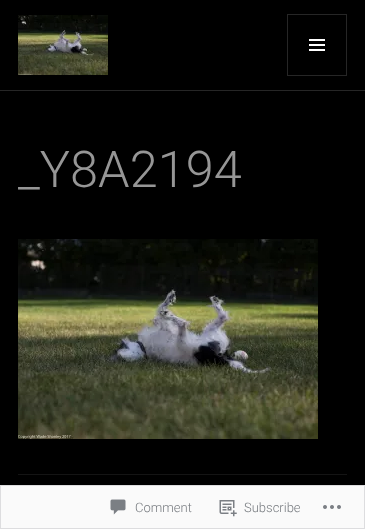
<svg xmlns="http://www.w3.org/2000/svg" xmlns:xlink="http://www.w3.org/1999/xlink" width="365" height="529" viewBox="0 0 365 529">
<style>
.cls-1{font:300 50.5px Roboto;fill:#969696}
.cls-2{font:300 13px Roboto;fill:#767a7f}
</style>
<rect width="100%" height="100%" fill="#000000"/>
<rect fill="#262626" x="0" y="90" width="365" height="1"/>
<image xlink:href="image0.png" x="18" y="15" width="90" height="60"/>
<rect fill="none" stroke="#262626" x="287.5" y="14.5" width="59" height="61"/>
<image xlink:href="image1.png" x="309" y="39" width="16" height="12"/>
<image xlink:href="image2.png" x="18" y="239" width="300" height="200"/>
<rect fill="#141414" x="18" y="474" width="329" height="1"/>
<rect fill="#141414" x="18" y="499" width="329" height="1"/>
<rect fill="#141414" x="18" y="524" width="329" height="1"/>
<rect fill="#ffffff" fill-opacity="0.98" stroke="#dddddf" x="0.5" y="485.5" width="364" height="43"/>
<image xlink:href="image3.png" x="110" y="499" width="16" height="16"/>
<image xlink:href="image4.png" x="219" y="500" width="18" height="17"/>
<image xlink:href="image5.png" x="323" y="505" width="18" height="4"/>
<text class="cls-1" x="18" y="187">_Y8A2194</text>
<text class="cls-2" x="135" y="512">Comment</text>
<text class="cls-2" x="244" y="512">Subscribe</text>
</svg>
